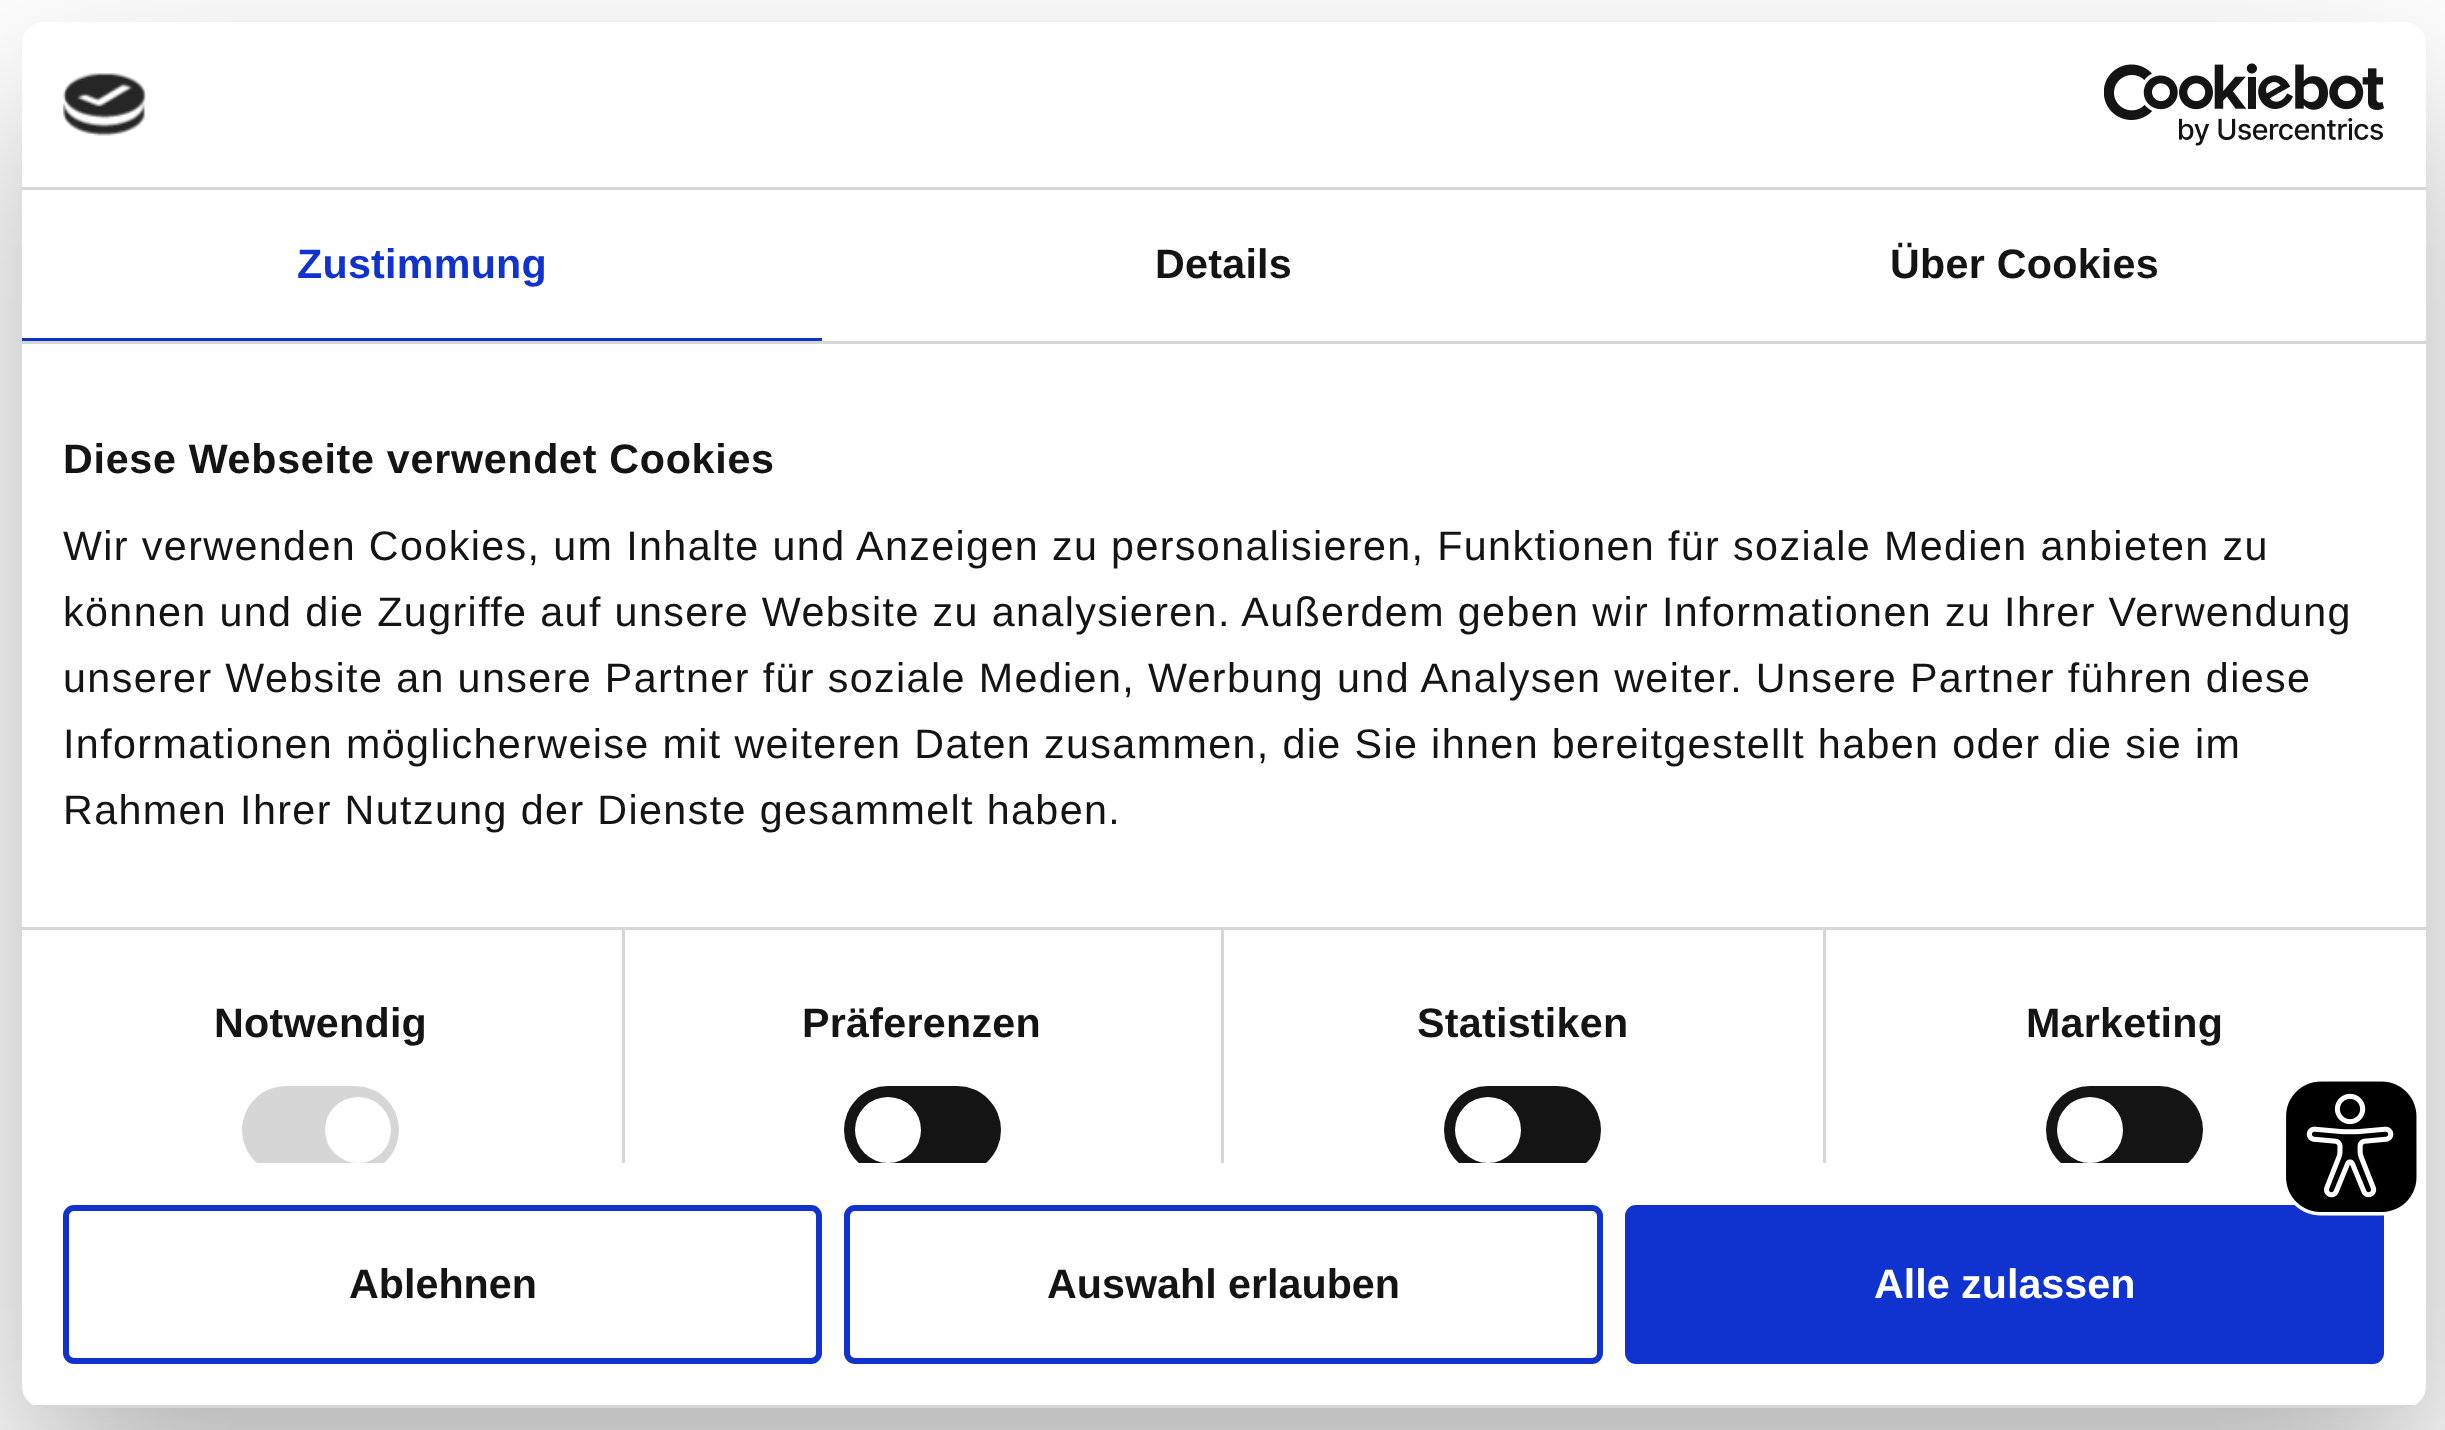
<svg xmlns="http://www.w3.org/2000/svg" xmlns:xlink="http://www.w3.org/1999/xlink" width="2445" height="1430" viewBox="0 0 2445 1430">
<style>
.cls-1{font:bold 41.25px Liberation Sans;letter-spacing:0.25px;fill:#1032cf}
.cls-2{font:bold 41.25px Liberation Sans;letter-spacing:0.25px;fill:#141414}
.cls-3{font:bold 41.25px Liberation Sans;letter-spacing:0.7px;fill:#141414}
.cls-4{font:41.25px Liberation Sans;letter-spacing:1.38px;fill:#141414}
.cls-5{font:bold 41.25px Liberation Sans;fill:#141414}
.cls-6{font:bold 41.25px Liberation Sans;fill:#ffffff}
</style>
<defs>
<clipPath id="clip1"><rect x="22" y="344" width="2404" height="819"/></clipPath>
<clipPath id="clip2"><rect x="22" y="22" width="2404" height="1386" rx="22"/></clipPath>
</defs>
<rect width="100%" height="100%" fill="#ffffff"/>
<rect fill="#000000" fill-opacity="0.3" filter="blur(93.5px)" x="22" y="110" width="2404" height="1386" rx="22"/>
<rect fill="#ffffff" x="22" y="22" width="2404" height="1386" rx="22"/>
<rect fill="#d6d6d6" x="22" y="187" width="2404" height="3"/>
<image xlink:href="image0.png" x="63" y="73" width="83" height="63"/>
<image xlink:href="image1.png" x="2104" y="63" width="280" height="83"/>
<rect fill="#d6d6d6" x="22" y="341" width="2404" height="3"/>
<rect fill="#1032cf" x="22" y="338" width="800" height="3"/>
<rect fill="#d6d6d6" x="22" y="927" width="2404" height="3"/>
<rect fill="#d6d6d6" x="622" y="930" width="3" height="233"/>
<g clip-path="url(#clip1)">
<rect fill="#d6d6d6" x="242" y="1086" width="157" height="88" rx="44"/>
</g>
<circle fill="#ffffff" cx="358" cy="1130" r="33"/>
<rect fill="#d6d6d6" x="1221" y="930" width="3" height="233"/>
<g clip-path="url(#clip1)">
<rect fill="#141414" x="844" y="1086" width="157" height="88" rx="44"/>
</g>
<circle fill="#ffffff" cx="888" cy="1130" r="33"/>
<rect fill="#d6d6d6" x="1823" y="930" width="3" height="233"/>
<g clip-path="url(#clip1)">
<rect fill="#141414" x="1444" y="1086" width="157" height="88" rx="44"/>
</g>
<circle fill="#ffffff" cx="1488" cy="1130" r="33"/>
<g clip-path="url(#clip1)">
<rect fill="#141414" x="2046" y="1086" width="157" height="88" rx="44"/>
</g>
<circle fill="#ffffff" cx="2090" cy="1130" r="33"/>
<g clip-path="url(#clip2)">
<rect fill="#d6d6d6" x="33" y="1405" width="2382" height="3"/>
</g>
<rect fill="none" stroke="#1032cf" stroke-width="6" x="66" y="1208" width="753" height="153" rx="8"/>
<rect fill="none" stroke="#1032cf" stroke-width="6" x="847" y="1208" width="753" height="153" rx="8"/>
<rect fill="#1032cf" stroke="#1032cf" stroke-width="6" x="1628" y="1208" width="753" height="153" rx="8"/>
<image xlink:href="image2.png" x="2286" y="1081" width="131" height="135"/>
<text class="cls-1" x="297" y="278">Zustimmung</text>
<text class="cls-2" x="1155" y="278">Details</text>
<text class="cls-2" x="1890" y="278">Über Cookies</text>
<text class="cls-3" x="63" y="473">Diese Webseite verwendet Cookies</text>
<text class="cls-4"><tspan x="63" y="560">Wir verwenden Cookies, um Inhalte und Anzeigen zu personalisieren, Funktionen für soziale Medien anbieten zu</tspan><tspan x="63" y="626">können und die Zugriffe auf unsere Website zu analysieren. Außerdem geben wir Informationen zu Ihrer Verwendung</tspan><tspan x="63" y="692">unserer Website an unsere Partner für soziale Medien, Werbung und Analysen weiter. Unsere Partner führen diese</tspan><tspan x="63" y="758">Informationen möglicherweise mit weiteren Daten zusammen, die Sie ihnen bereitgestellt haben oder die sie im</tspan><tspan x="63" y="824">Rahmen Ihrer Nutzung der Dienste gesammelt haben.</tspan></text>
<text class="cls-2" x="214" y="1037">Notwendig</text>
<text class="cls-2" x="802" y="1037">Präferenzen</text>
<text class="cls-2" x="1417" y="1037">Statistiken</text>
<text class="cls-2" x="2026" y="1037">Marketing</text>
<text class="cls-5" x="349" y="1298">Ablehnen</text>
<text class="cls-5" x="1047" y="1298">Auswahl erlauben</text>
<text class="cls-6" x="1874" y="1298">Alle zulassen</text>
</svg>
